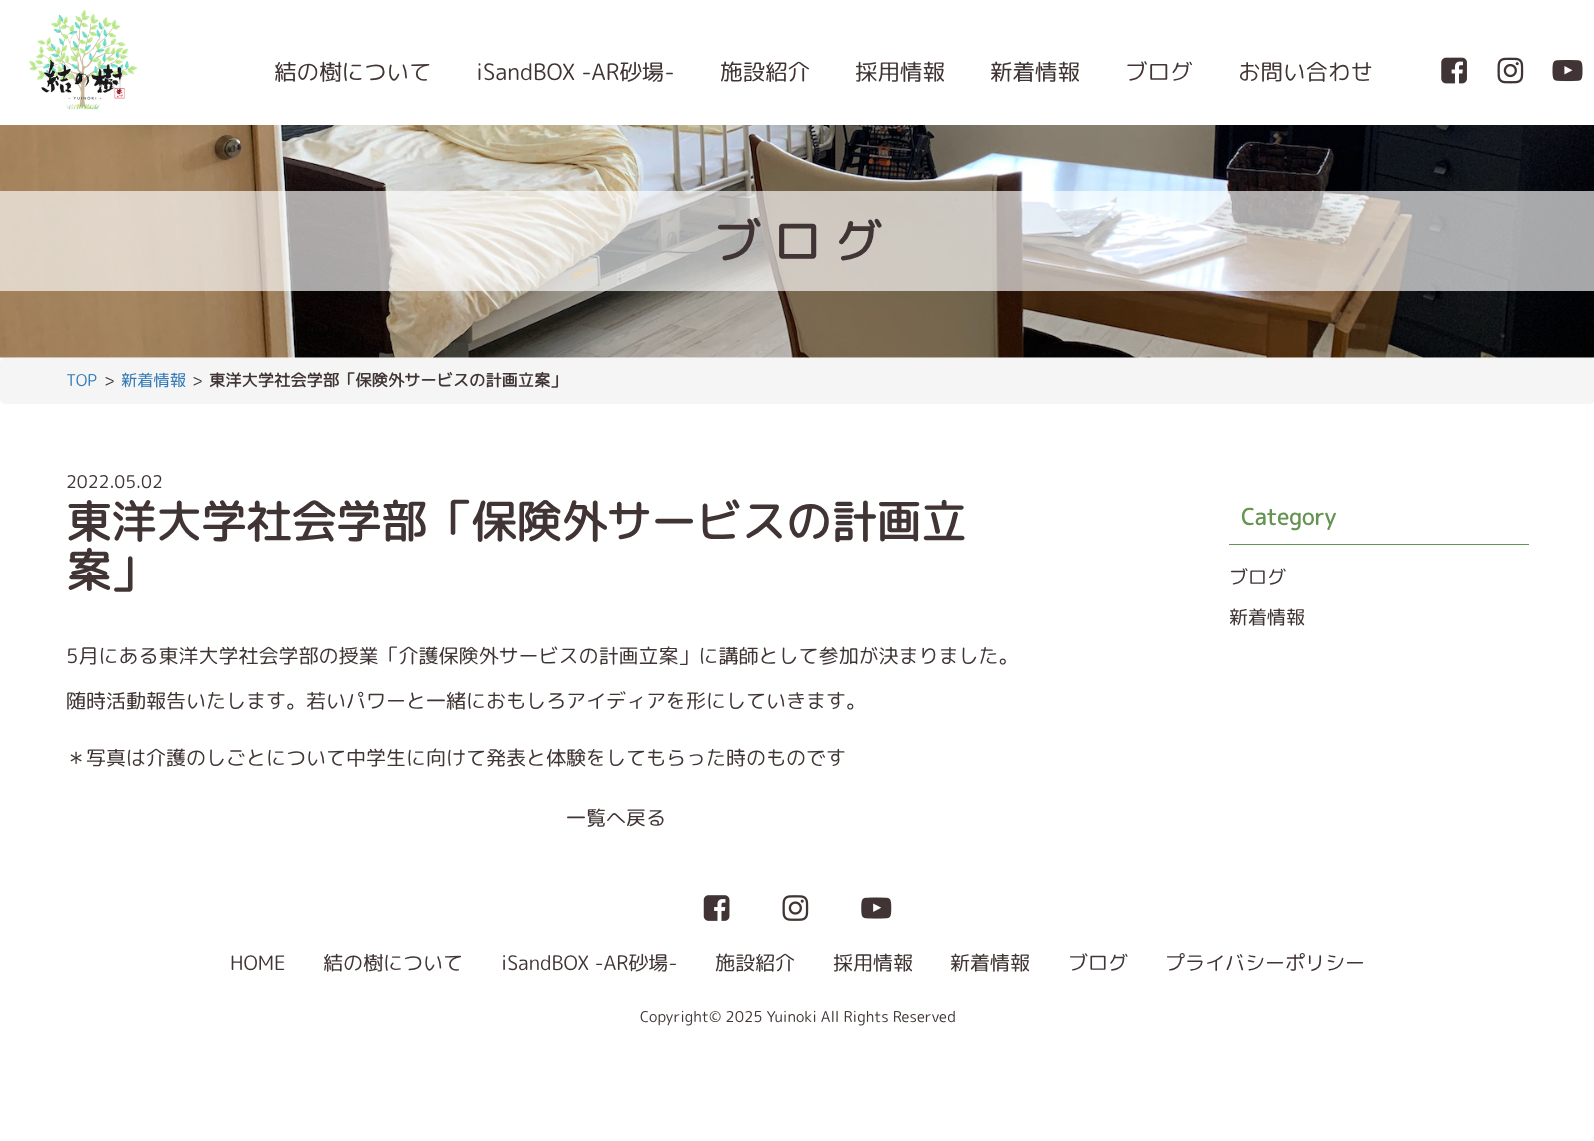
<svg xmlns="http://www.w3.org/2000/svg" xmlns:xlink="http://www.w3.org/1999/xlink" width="1594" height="1141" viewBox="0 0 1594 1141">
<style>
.cls-1{font:22.5px 'Rounded Mplus 1c';fill:#403534}
.cls-2{font:bold 47.5px 'Rounded Mplus 1c';fill:#403534}
.cls-3{font:16.25px 'Rounded Mplus 1c';fill:#337ab7}
.cls-4{font:16.25px 'Rounded Mplus 1c';fill:#403534}
.cls-5{font:bold 16.25px 'Rounded Mplus 1c';fill:#403534}
.cls-6{font:17.5px 'Rounded Mplus 1c';fill:#403534}
.cls-7{font:bold 45px 'Rounded Mplus 1c';fill:#403534}
.cls-8{font:20px 'Rounded Mplus 1c';fill:#403534}
.cls-9{font:bold 22.5px 'Rounded Mplus 1c';fill:#659351}
.cls-10{font:19px 'Rounded Mplus 1c';fill:#403534}
.cls-11{font:15px 'Rounded Mplus 1c';fill:#403534}
</style>
<rect width="100%" height="100%" fill="#ffffff"/>
<image xlink:href="image0.png" x="29" y="10" width="109" height="100"/>
<image xlink:href="image1.png" x="1441" y="57" width="26" height="27"/>
<image xlink:href="image2.png" x="1497" y="57" width="27" height="27"/>
<image xlink:href="image3.png" x="1552" y="60" width="31" height="22"/>
<image xlink:href="image4.png" x="0" y="125" width="1594" height="233"/>
<rect fill="#ffffff" fill-opacity="0.65" x="0" y="191" width="1594" height="100"/>
<rect fill="#f5f5f5" x="0" y="358" width="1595" height="46" rx="5"/>
<rect fill="#659351" x="1229" y="544" width="300" height="1"/>
<image xlink:href="image5.png" x="703" y="895" width="27" height="26"/>
<image xlink:href="image6.png" x="782" y="895" width="27" height="26"/>
<image xlink:href="image7.png" x="861" y="897" width="31" height="22"/>
<text class="cls-1" x="274" y="80">結の樹について</text>
<text class="cls-1" x="476" y="80">iSandBOX -AR砂場-</text>
<text class="cls-1" x="720" y="80">施設紹介</text>
<text class="cls-1" x="855" y="80">採用情報</text>
<text class="cls-1" x="990" y="80">新着情報</text>
<text class="cls-1" x="1125" y="80">ブログ</text>
<text class="cls-1" x="1238" y="80">お問い合わせ</text>
<text class="cls-2" x="713" y="259">ブ ロ グ</text>
<text class="cls-3" x="66" y="386">TOP</text>
<text class="cls-4" x="104" y="386">&gt;</text>
<text class="cls-3" x="121" y="386">新着情報</text>
<text class="cls-4" x="192" y="386">&gt;</text>
<text class="cls-5" x="209" y="386">東洋大学社会学部「保険外サービスの計画立案」</text>
<text class="cls-6" x="66" y="488">2022.05.02</text>
<text class="cls-7"><tspan x="66" y="538">東洋大学社会学部「保険外サービスの計画立</tspan><tspan x="66" y="587">案」</tspan></text>
<text class="cls-8" x="66" y="663">5月にある東洋大学社会学部の授業「介護保険外サービスの計画立案」に講師として参加が決まりました。</text>
<text class="cls-8" x="66" y="708">随時活動報告いたします。若いパワーと一緒におもしろアイディアを形にしていきます。</text>
<text class="cls-8" x="66" y="765">＊写真は介護のしごとについて中学生に向けて発表と体験をしてもらった時のものです</text>
<text class="cls-8" x="566" y="825">一覧へ戻る</text>
<text class="cls-9" x="1241" y="525">Category</text>
<text class="cls-10" x="1229" y="584">ブログ</text>
<text class="cls-10" x="1229" y="624">新着情報</text>
<text class="cls-8" x="230" y="970">HOME</text>
<text class="cls-8" x="323" y="970">結の樹について</text>
<text class="cls-8" x="501" y="970">iSandBOX -AR砂場-</text>
<text class="cls-8" x="715" y="970">施設紹介</text>
<text class="cls-8" x="833" y="970">採用情報</text>
<text class="cls-8" x="950" y="970">新着情報</text>
<text class="cls-8" x="1068" y="970">ブログ</text>
<text class="cls-8" x="1165" y="970">プライバシーポリシー</text>
<text class="cls-11" x="640" y="1022">Copyright© 2025 Yuinoki All Rights Reserved</text>
</svg>
